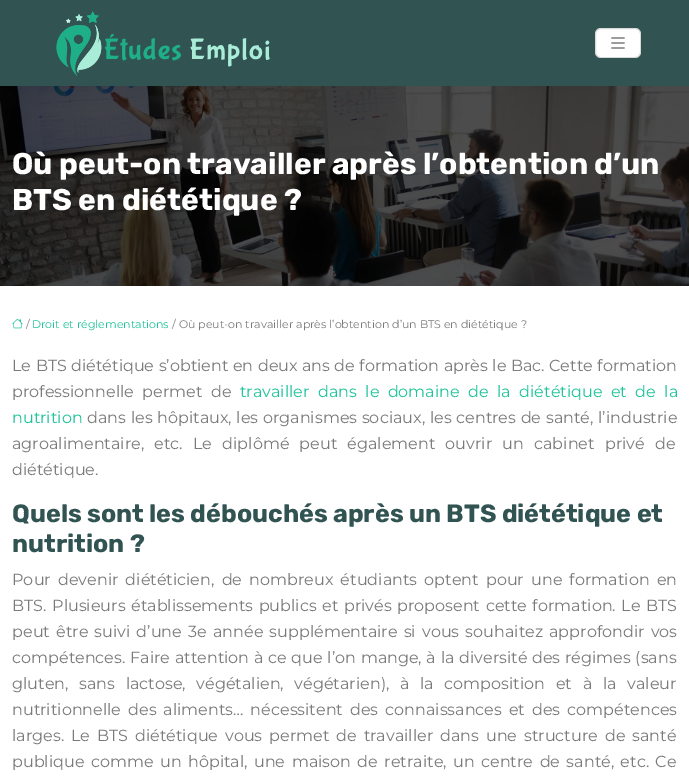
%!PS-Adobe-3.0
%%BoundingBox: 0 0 689 784
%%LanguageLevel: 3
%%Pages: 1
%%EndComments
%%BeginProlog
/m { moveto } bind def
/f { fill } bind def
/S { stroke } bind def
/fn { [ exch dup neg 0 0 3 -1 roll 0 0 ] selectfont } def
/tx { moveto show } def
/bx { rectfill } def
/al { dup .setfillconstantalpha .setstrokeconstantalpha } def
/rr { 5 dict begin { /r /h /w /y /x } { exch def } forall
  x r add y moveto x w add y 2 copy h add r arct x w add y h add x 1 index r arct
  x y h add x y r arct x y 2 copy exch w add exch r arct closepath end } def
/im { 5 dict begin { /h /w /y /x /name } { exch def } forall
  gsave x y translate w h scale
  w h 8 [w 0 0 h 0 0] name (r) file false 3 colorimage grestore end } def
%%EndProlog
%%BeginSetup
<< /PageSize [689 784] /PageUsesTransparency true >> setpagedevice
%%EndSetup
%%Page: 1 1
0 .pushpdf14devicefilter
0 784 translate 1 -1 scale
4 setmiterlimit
1 setgray
0 0 689 784 bx
0.192 0.329 0.325 setrgbcolor
0 0 689 86 bx
(image0.raw) 56 11 214 66 im
1 setgray
595 28 46 30 6 rr f
0.15 al
0 setgray
595.5 28.5 45 29 5.5 rr S
1 al
(image1.raw) 611 37 14 12 im
(image2.raw) 0 86 689 200 im
/Rubik-Light 30 fn
1 setgray
(Où peut-on travailler après l’obtention d’un) 12 174 tx
(BTS en diététique ?) 12 210 tx
(image3.raw) 12 318 11 11 im
/Montserrat-Regular 11 fn
0.478 setgray
(/) 26 328 tx
0.122 0.765 0.604 setrgbcolor
(Droit et réglementations) 32 328 tx
0.478 setgray
(/ Où peut-on travailler après l’obtention d’un BTS en diététique ?) 172 328 tx
/Montserrat-Regular 16 fn
12 371 m 0.25 0 32 (Le BTS diététique s’obtient en deux ans de formation après le Bac. Cette formation) widthshow
12 397 m 4.25 0 32 (professionnelle permet de) widthshow
0.122 0.765 0.604 setrgbcolor
240 397 m 4.25 0 32 (travailler dans le domaine de la diététique et de la) widthshow
(nutrition) 12 423 tx
0.478 setgray
87 423 m 0.5 0 32 (dans les hôpitaux, les organismes sociaux, les centres de santé, l’industrie) widthshow
12 449 m 6 0 32 (agroalimentaire, etc. Le diplômé peut également ouvrir un cabinet privé de) widthshow
(diététique.) 12 475 tx
/Rubik-Light 25 fn
0.192 0.329 0.325 setrgbcolor
(Quels sont les débouchés après un BTS diététique et) 12 522 tx
(nutrition ?) 12 552 tx
/Montserrat-Regular 16 fn
0.478 setgray
12 585 m 3 0 32 (Pour devenir diététicien, de nombreux étudiants optent pour une formation en) widthshow
12 611 m 1.4 0 32 (BTS. Plusieurs établissements publics et privés proposent cette formation. Le BTS) widthshow
12 637 m 2 0 32 (peut être suivi d’une 3e année supplémentaire si vous souhaitez approfondir vos) widthshow
12 663 m 0.5 0 32 (compétences. Faire attention à ce que l’on mange, à la diversité des régimes \(sans) widthshow
12 689 m 6.5 0 32 (gluten, sans lactose, végétalien, végétarien\), à la composition et à la valeur) widthshow
12 715 m 2.75 0 32 (nutritionnelle des aliments… nécessitent des connaissances et des compétences) widthshow
12 741 m 2.75 0 32 (larges. Le BTS diététique vous permet de travailler dans une structure de santé) widthshow
12 767 m 2.25 0 32 (publique comme un hôpital, une maison de retraite, un centre de santé, etc. Ce) widthshow
.poppdf14devicefilter showpage
%%EOF
